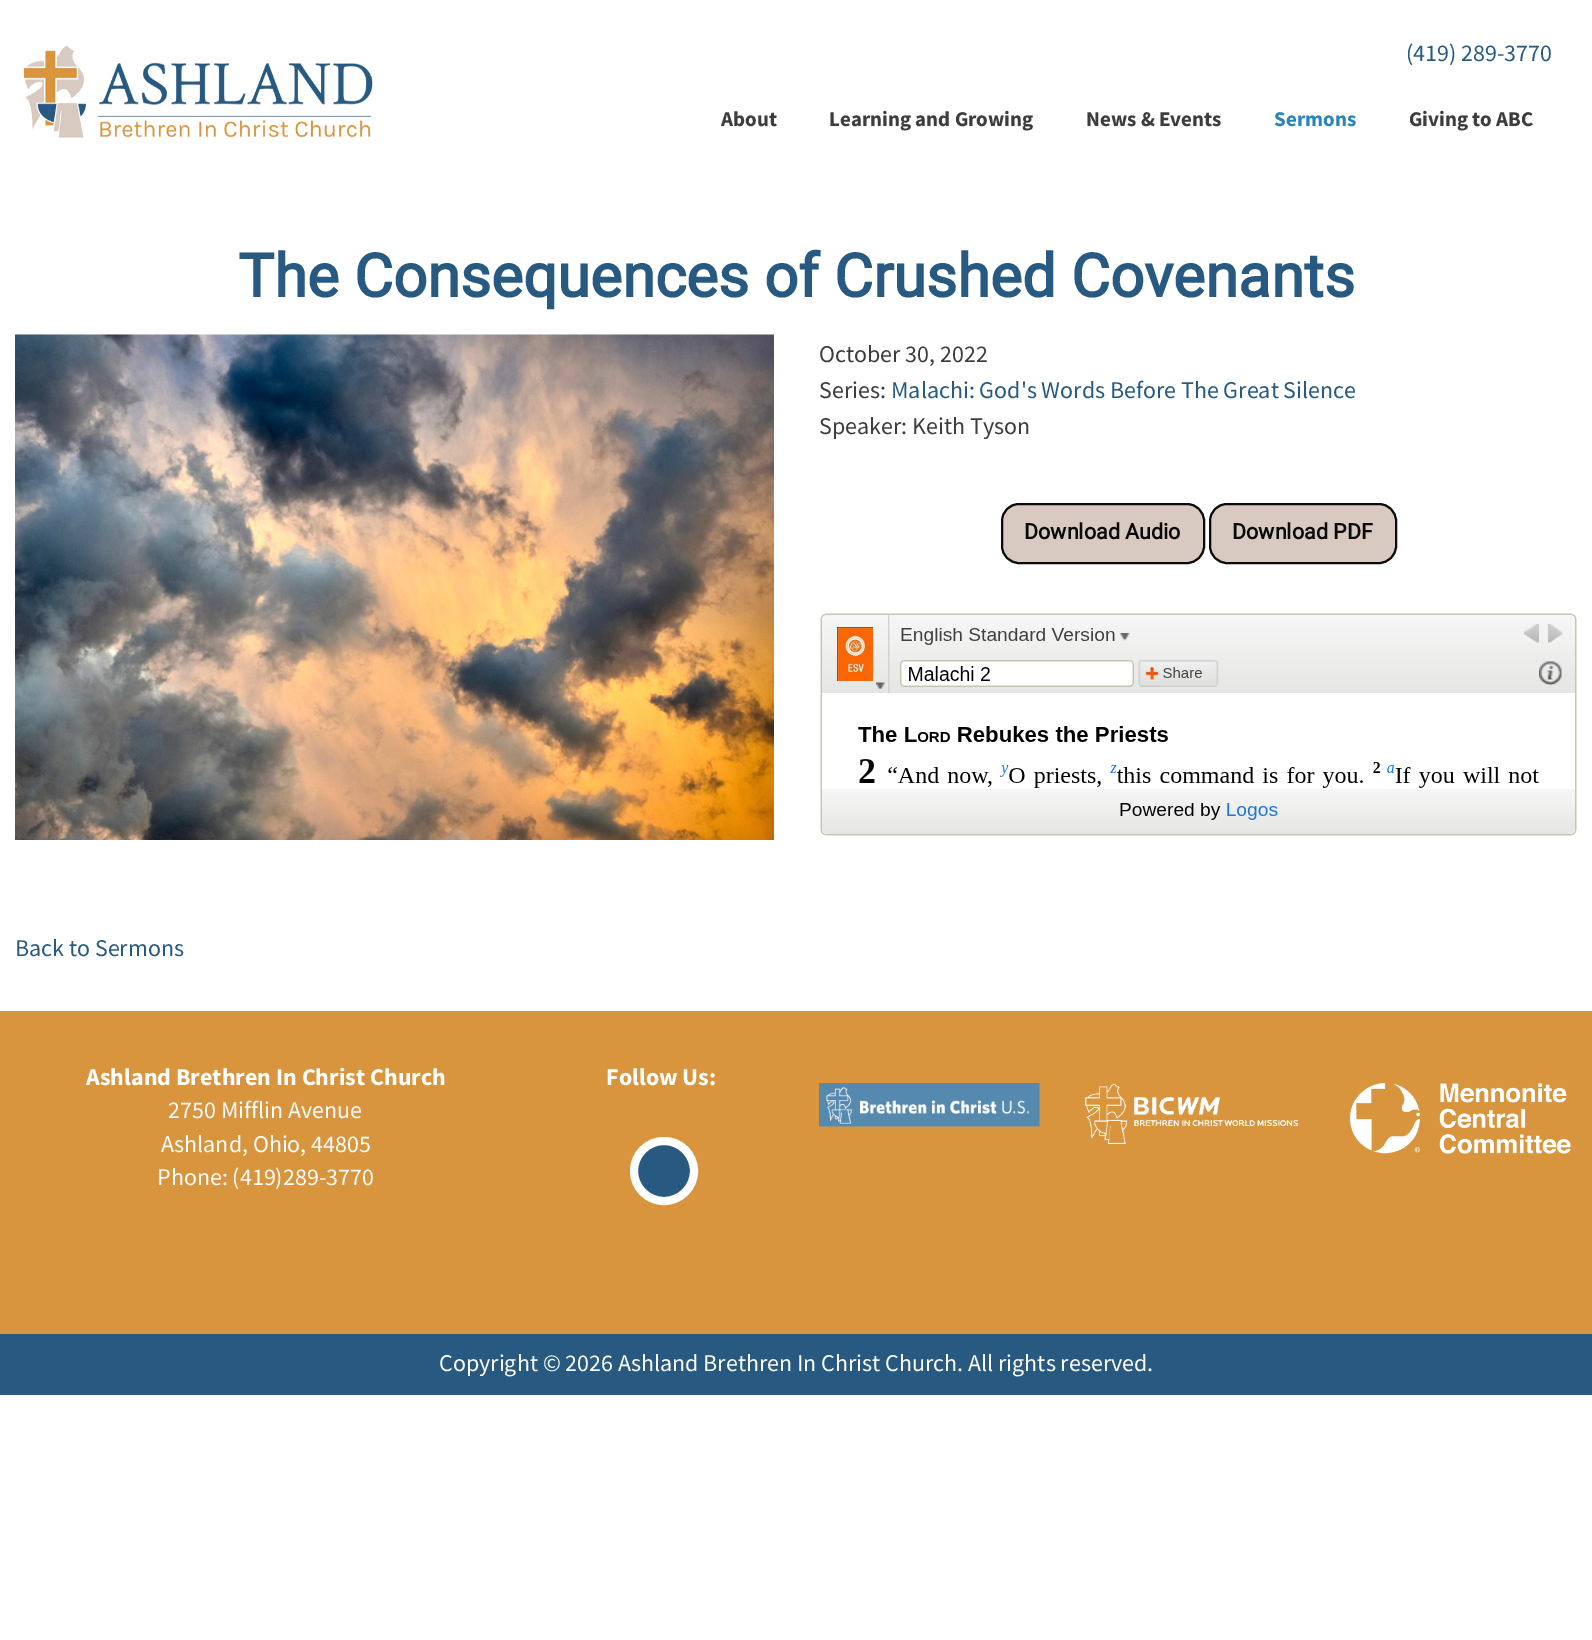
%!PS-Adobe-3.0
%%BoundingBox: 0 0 1592 1640
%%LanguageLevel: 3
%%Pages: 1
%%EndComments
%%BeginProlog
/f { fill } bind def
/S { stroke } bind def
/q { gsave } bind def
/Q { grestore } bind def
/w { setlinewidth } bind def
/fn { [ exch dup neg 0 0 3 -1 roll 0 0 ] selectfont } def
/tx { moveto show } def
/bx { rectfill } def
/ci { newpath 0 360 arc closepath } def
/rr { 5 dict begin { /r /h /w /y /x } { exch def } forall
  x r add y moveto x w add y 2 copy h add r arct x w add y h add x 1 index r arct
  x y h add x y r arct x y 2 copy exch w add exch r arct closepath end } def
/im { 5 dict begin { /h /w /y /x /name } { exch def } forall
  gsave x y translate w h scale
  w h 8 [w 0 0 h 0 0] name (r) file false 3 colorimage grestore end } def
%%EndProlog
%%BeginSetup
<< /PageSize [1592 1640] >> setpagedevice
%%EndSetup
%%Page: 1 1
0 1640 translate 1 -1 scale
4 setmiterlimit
1 setgray
0 0 1592 1640 bx
(image0.raw) 23 46 350 92 im
/SourceSansPro-Regular 24 fn
0.157 0.353 0.506 setrgbcolor
(\(419\) 289-3770) 1406 61 tx
/SourceSansPro-Bold 21 fn
0.239 setgray
(About) 721 126 tx
(Learning and Growing) 829 126 tx
(News & Events) 1086 126 tx
0.165 0.522 0.729 setrgbcolor
(Sermons) 1274 126 tx
0.239 setgray
(Giving to ABC) 1409 126 tx
/Roboto-Bold 60 fn
0.157 0.353 0.506 setrgbcolor
(The Consequences of Crushed Covenants) 238 297 tx
(image1.raw) 15 334 759 506 im
/SourceSansPro-Regular 24 fn
0.239 setgray
(October 30, 2022) 819 362 tx
(Series:) 819 398 tx
0.157 0.353 0.506 setrgbcolor
(Malachi: God's Words Before The Great Silence) 891 398 tx
0.239 setgray
(Speaker: Keith Tyson) 819 434 tx
0.847 0.792 0.753 setrgbcolor
1002 504 202 59 17 rr q f Q
0.039 setgray
2 w
S
/Roboto-Bold 21.5 fn
(Download Audio) 1024 539 tx
0.847 0.792 0.753 setrgbcolor
1210 504 186 59 17 rr q f Q
0.039 setgray
S
(Download PDF) 1232 539 tx
(image2.raw) 820 613 757 223 im
/SourceSansPro-Regular 24 fn
0.157 0.353 0.506 setrgbcolor
(Back to Sermons) 15 956 tx
0.847 0.584 0.243 setrgbcolor
0 1011 1592 323 bx
/SourceSansPro-Bold 24 fn
1 setgray
(Ashland Brethren In Christ Church) 86 1085 tx
/SourceSansPro-Regular 24 fn
(2750 Mifflin Avenue) 168 1118 tx
(Ashland, Ohio, 44805) 161 1152 tx
(Phone: \(419\)289-3770) 157 1185 tx
/SourceSansPro-Bold 24 fn
(Follow Us:) 606 1085 tx
0.157 0.353 0.506 setrgbcolor
664 1171 30 ci q f Q
1 setgray
8 w
S
(image3.raw) 819 1083 221 44 im
(image4.raw) 1085 1083 213 61 im
(image5.raw) 1350 1083 221 71 im
0.157 0.353 0.506 setrgbcolor
0 1334 1592 61 bx
/SourceSansPro-Regular 24 fn
1 setgray
(Copyright © 2026 Ashland Brethren In Christ Church. All rights reserved.) 439 1371 tx
showpage
%%EOF
